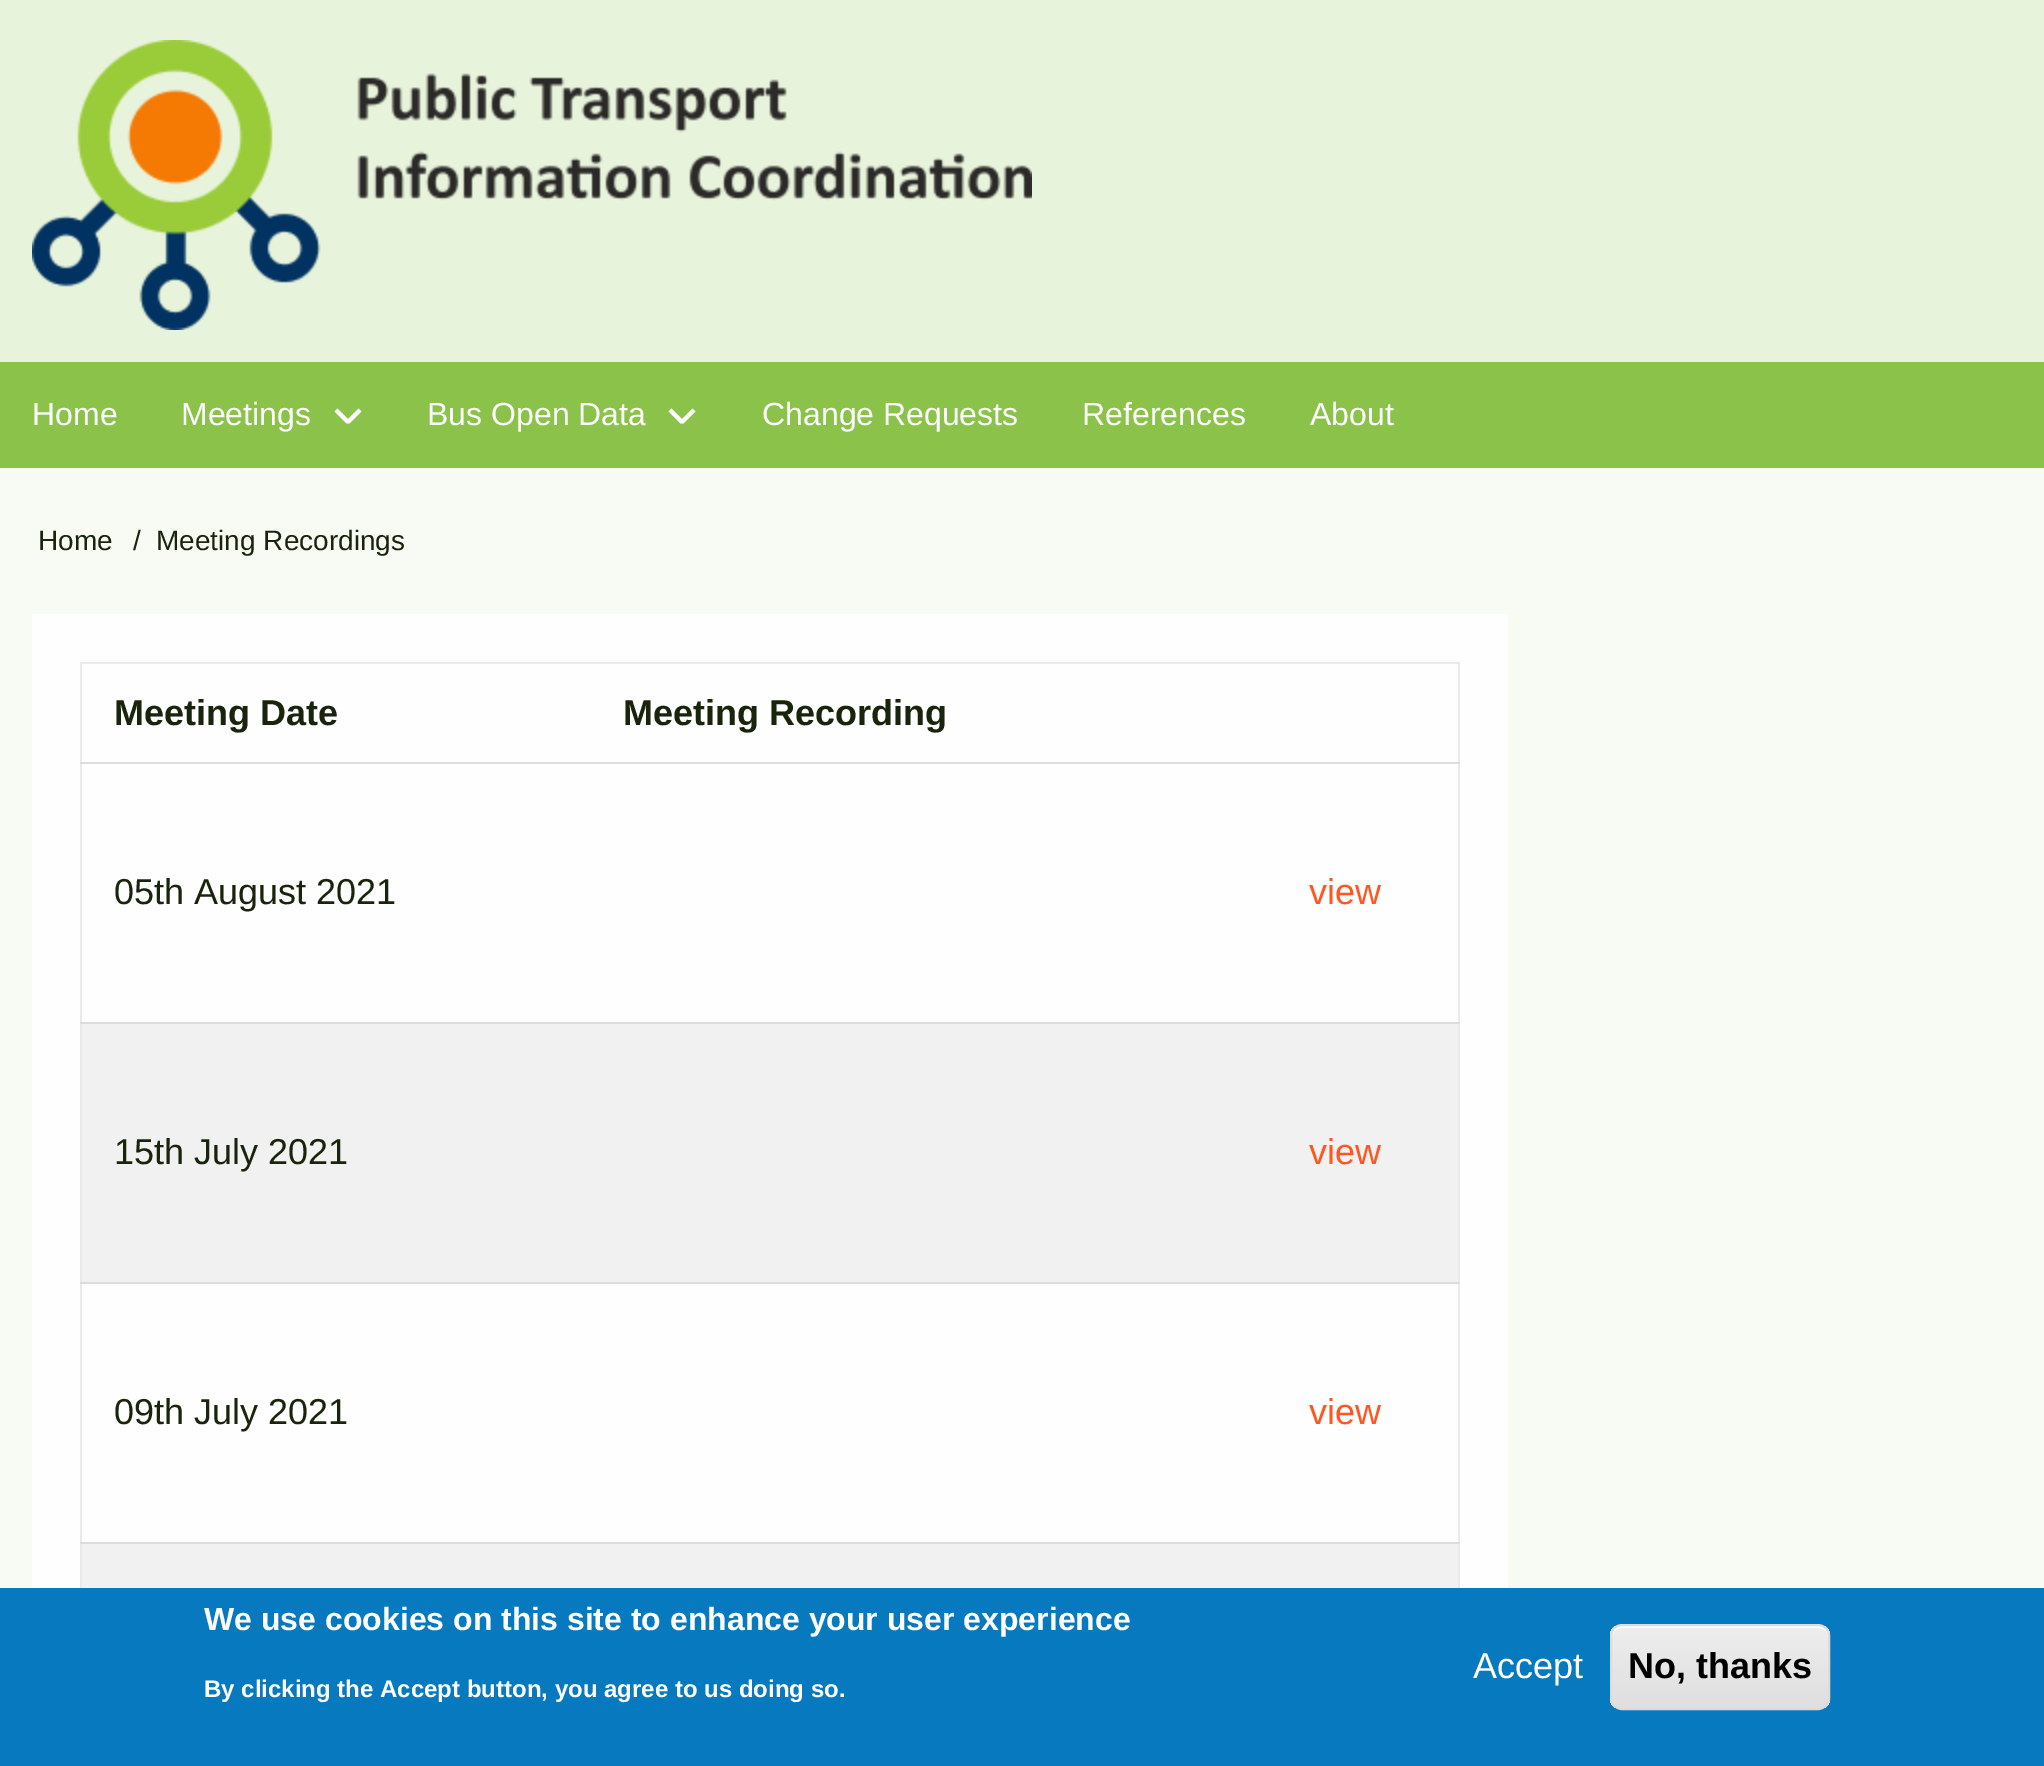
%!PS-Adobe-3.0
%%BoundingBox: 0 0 2044 1766
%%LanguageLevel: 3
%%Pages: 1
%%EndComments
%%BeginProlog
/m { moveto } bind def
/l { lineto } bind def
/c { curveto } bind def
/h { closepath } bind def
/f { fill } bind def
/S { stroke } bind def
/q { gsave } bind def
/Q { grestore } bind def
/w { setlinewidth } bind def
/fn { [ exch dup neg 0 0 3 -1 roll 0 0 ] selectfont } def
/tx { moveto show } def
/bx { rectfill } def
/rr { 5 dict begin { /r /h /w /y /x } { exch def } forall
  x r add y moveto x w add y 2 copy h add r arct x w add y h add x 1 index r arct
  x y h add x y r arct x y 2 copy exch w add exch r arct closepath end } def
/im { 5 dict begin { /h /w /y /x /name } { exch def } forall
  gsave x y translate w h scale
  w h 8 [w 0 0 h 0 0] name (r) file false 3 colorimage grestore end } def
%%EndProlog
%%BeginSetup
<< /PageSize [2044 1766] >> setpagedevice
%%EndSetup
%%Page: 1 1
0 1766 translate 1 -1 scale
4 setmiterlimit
0.91 0.953 0.859 setrgbcolor
0 0 2044 1766 bx
(image0.raw) 32 40 1000 290 im
0.545 0.765 0.29 setrgbcolor
0 362 2044 106 bx
/LiberationSans-Regular 32 fn
0.992 0.996 0.992 setrgbcolor
(Home) 32 425 tx
(Meetings) 181 425 tx
4 w
2 setlinejoin
336 410 m 348 422 l 360 410 l S
(Bus Open Data) 427 425 tx
670 410 m 682 422 l 694 410 l S
(Change Requests) 762 425 tx
(References) 1082 425 tx
(About) 1310 425 tx
0.973 0.984 0.957 setrgbcolor
0 468 2044 1120 bx
/LiberationSans-Regular 28 fn
0.098 0.141 0.047 setrgbcolor
(Home) 38 550 tx
(/) 133 550 tx
(Meeting Recordings) 156 550 tx
0.992 0.996 0.992 setrgbcolor
32 614 1476 974 bx
0.918 setgray
80 662 1380 2 bx
1458 662 2 926 bx
80 662 2 926 bx
0.867 setgray
80 762 1380 2 bx
/LiberationSans-Bold 36 fn
0.098 0.141 0.047 setrgbcolor
(Meeting Date) 114 725 tx
(Meeting Recording) 623 725 tx
0.867 setgray
80 1022 1380 2 bx
/LiberationSans-Regular 36 fn
0.098 0.141 0.047 setrgbcolor
(05th August 2021) 114 904 tx
1 0.341 0.133 setrgbcolor
(view) 1309 904 tx
0.945 setgray
82 1024 1376 258 bx
0.867 setgray
80 1282 1380 2 bx
0.098 0.141 0.047 setrgbcolor
(15th July 2021) 114 1164 tx
1 0.341 0.133 setrgbcolor
(view) 1309 1164 tx
0.867 setgray
80 1542 1380 2 bx
0.098 0.141 0.047 setrgbcolor
(09th July 2021) 114 1424 tx
1 0.341 0.133 setrgbcolor
(view) 1309 1424 tx
0.945 setgray
82 1544 1376 44 bx
0.027 0.475 0.749 setrgbcolor
0 1588 2044 178 bx
/LiberationSans-Bold 32 fn
0.992 0.996 0.992 setrgbcolor
(We use cookies on this site to enhance your user experience) 204 1630 tx
/LiberationSans-Bold 24 fn
(By clicking the Accept button, you agree to us doing so.) 204 1697 tx
/LiberationSans-Regular 36 fn
(Accept) 1473 1678 tx
q
1610 1624 220 86 12 rr clip newpath
q 1610 1626 m 1830 1626 l 1830 1708 l 1610 1708 l h clip newpath
<< /ShadingType 2 /ColorSpace /DeviceRGB /Coords [1720 1626 1720 1708] /Extend [true true] /Function << /FunctionType 3 /Domain [0 1] /Functions [<< /FunctionType 2 /Domain [0 1] /C0 [0.929 0.929 0.929] /C1 [0.929 0.929 0.929] /N 1 >> << /FunctionType 2 /Domain [0 1] /C0 [0.929 0.929 0.929] /C1 [0.875 0.875 0.875] /N 1 >>] /Bounds [0.05] /Encode [0 1 0 1] >> >> shfill Q
Q
1 setgray
1622 1628 m 1818 1628 l 1824 1628 1828 1632 1828 1638 c 1828 1636 l 1828 1630 1824 1626 1818 1626 c 1622 1626 l 1616 1626 1612 1630 1612 1636 c 1612 1638 l 1612 1632 1616 1628 1622 1628 c h f
0.863 setgray
2 w
0 setlinejoin
1611 1625 218 84 11 rr S
/LiberationSans-Bold 36 fn
0 setgray
(No, thanks) 1628 1678 tx
showpage
%%EOF
